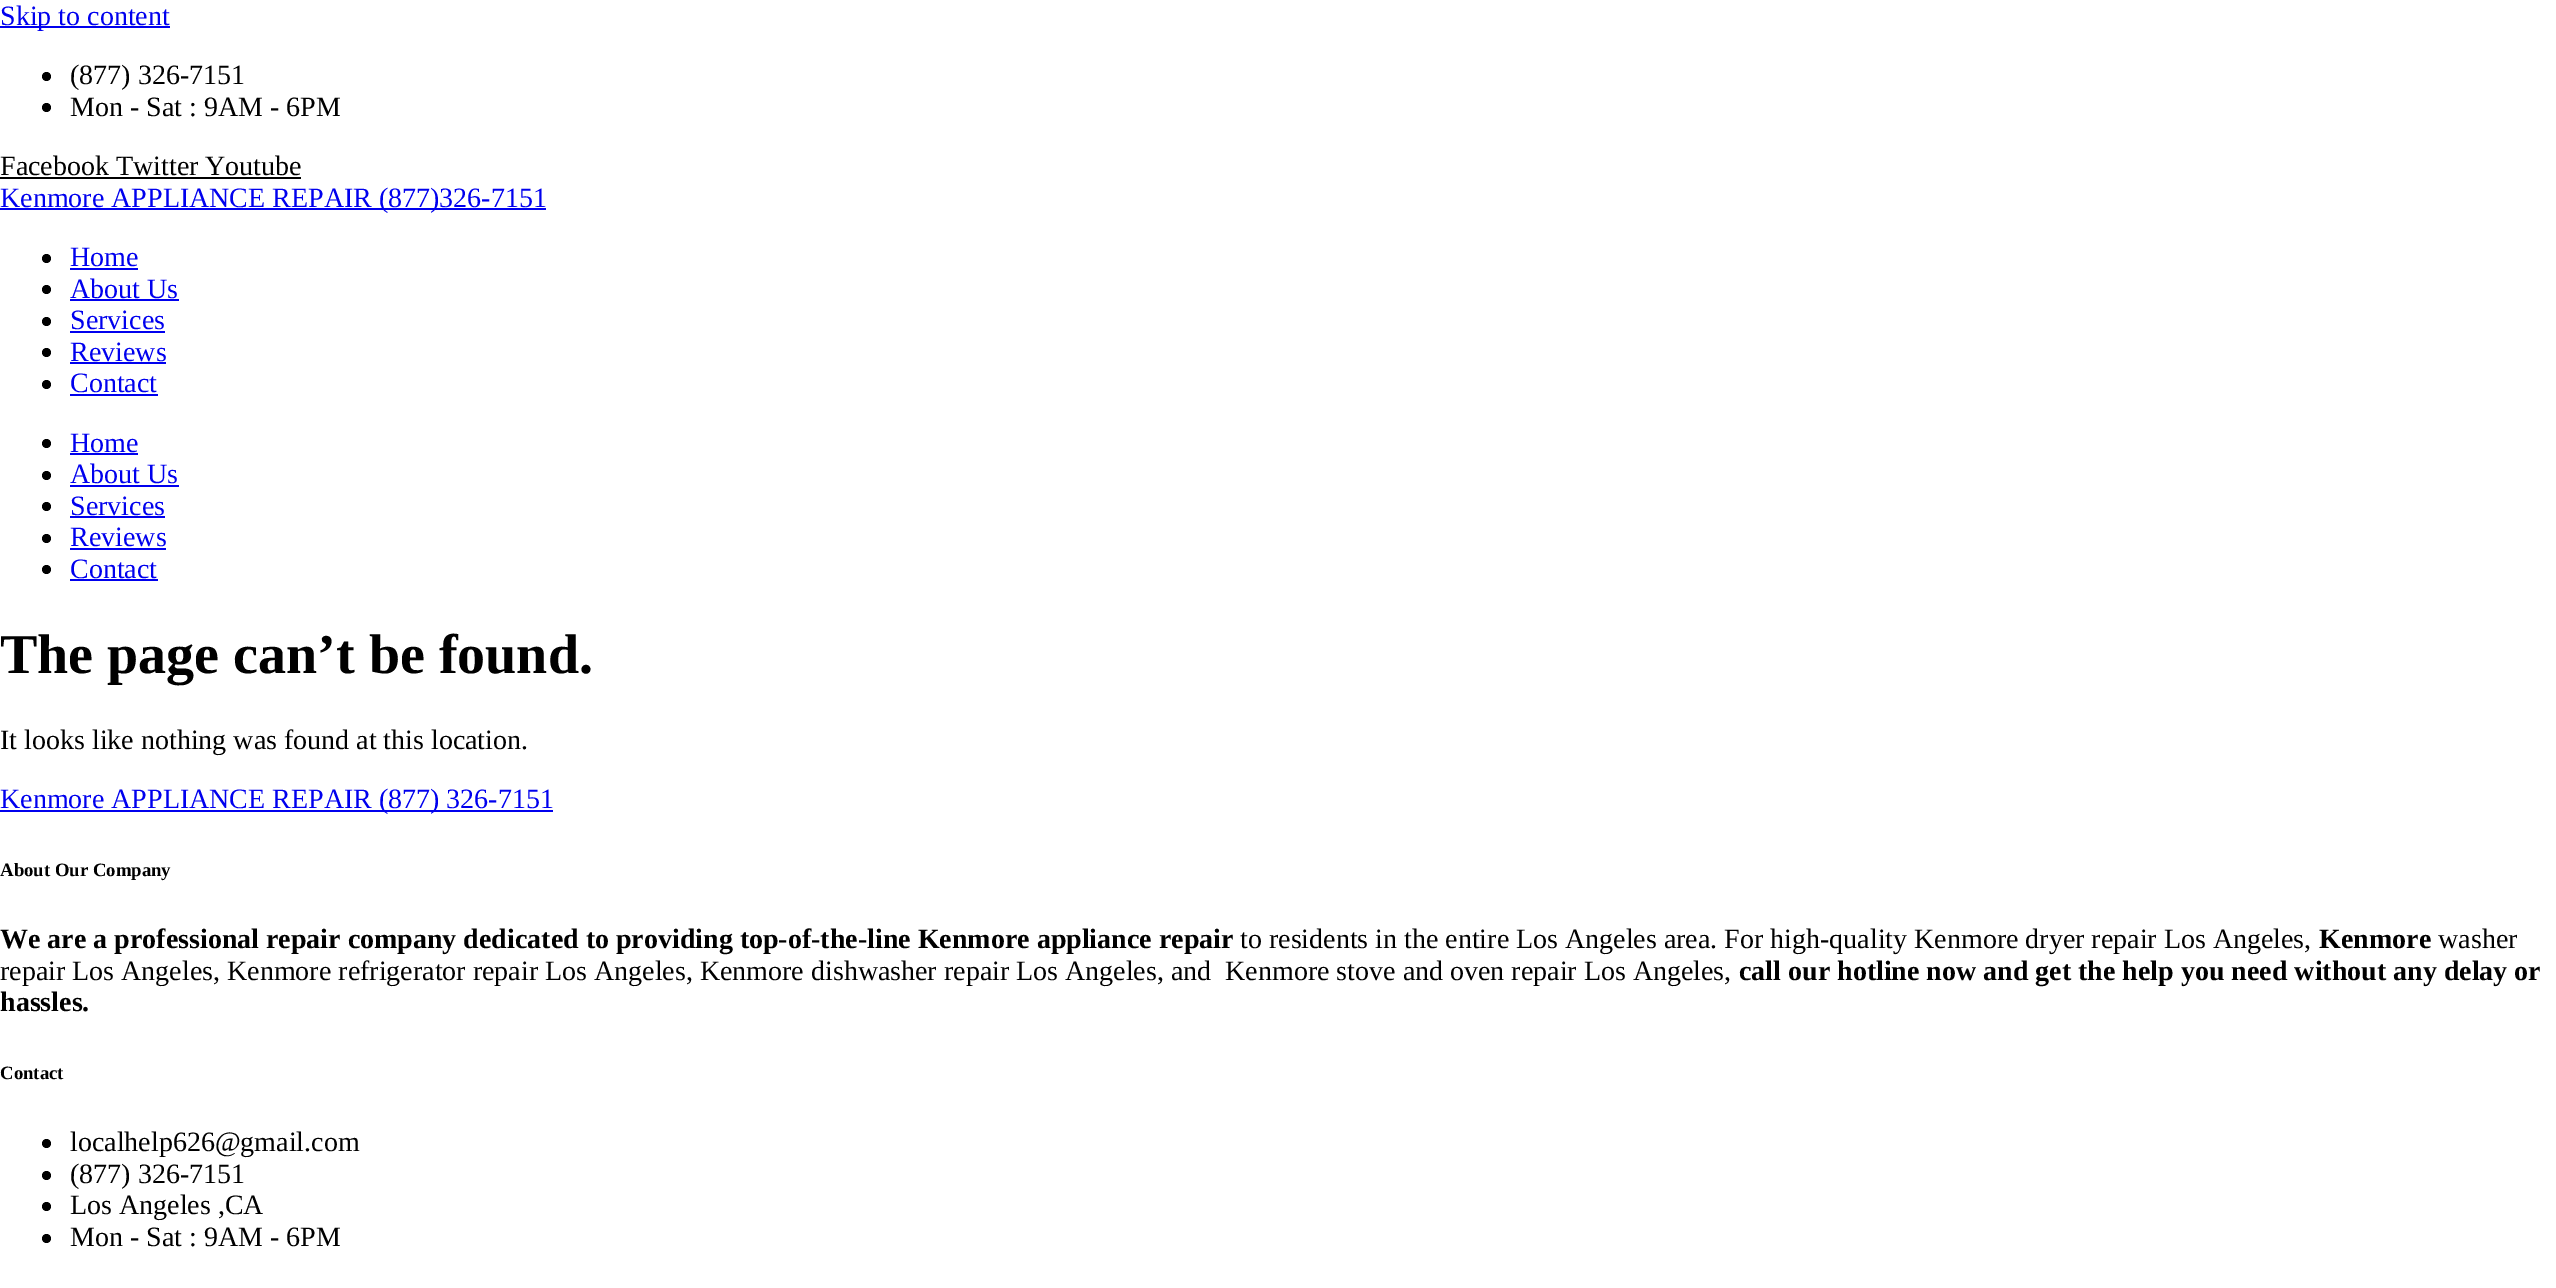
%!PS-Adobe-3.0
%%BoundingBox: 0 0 2556 1288
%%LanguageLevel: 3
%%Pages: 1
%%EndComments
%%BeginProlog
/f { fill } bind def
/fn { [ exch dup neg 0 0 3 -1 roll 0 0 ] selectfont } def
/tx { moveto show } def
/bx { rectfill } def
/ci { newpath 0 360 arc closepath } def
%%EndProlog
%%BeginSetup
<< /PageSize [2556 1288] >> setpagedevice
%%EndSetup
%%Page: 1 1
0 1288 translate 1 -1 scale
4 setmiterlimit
1 setgray
0 0 2556 1288 bx
0 0 0.933 setrgbcolor
0 26 170 2 bx
/LiberationSerif-Regular 28 fn
(Skip to content) 0 25 tx
0 setgray
46.5 76.5 4.5 ci f
(\(877\) 326-7151) 70 84 tx
46.5 107.5 4.5 ci f
(Mon - Sat : 9AM - 6PM) 70 116 tx
(Facebook Twitter Youtube) 0 175 tx
0 177 301 2 bx
0 0 0.933 setrgbcolor
0 208 546 2 bx
(Kenmore APPLIANCE REPAIR \(877\)326-7151) 0 207 tx
0 setgray
46.5 258.5 4.5 ci f
0 0 0.933 setrgbcolor
(Home) 70 266 tx
70 268 68 2 bx
0 setgray
46.5 289.5 4.5 ci f
0 0 0.933 setrgbcolor
(About Us) 70 298 tx
70 299 109 2 bx
0 setgray
46.5 321.5 4.5 ci f
0 0 0.933 setrgbcolor
(Services) 70 329 tx
70 331 95 2 bx
0 setgray
46.5 352.5 4.5 ci f
0 0 0.933 setrgbcolor
(Reviews) 70 361 tx
70 362 96 2 bx
0 setgray
46.5 384.5 4.5 ci f
0 0 0.933 setrgbcolor
(Contact) 70 392 tx
70 394 88 2 bx
0 setgray
46.5 443.5 4.5 ci f
0 0 0.933 setrgbcolor
(Home) 70 452 tx
70 453 68 2 bx
0 setgray
46.5 475.5 4.5 ci f
0 0 0.933 setrgbcolor
(About Us) 70 483 tx
70 485 109 2 bx
0 setgray
46.5 506.5 4.5 ci f
0 0 0.933 setrgbcolor
(Services) 70 515 tx
70 516 95 2 bx
0 setgray
46.5 538.5 4.5 ci f
0 0 0.933 setrgbcolor
(Reviews) 70 546 tx
70 548 96 2 bx
0 setgray
46.5 569.5 4.5 ci f
0 0 0.933 setrgbcolor
(Contact) 70 578 tx
70 579 88 2 bx
/LiberationSerif-Bold 56 fn
0 setgray
(The page can’t be found.) 0 673 tx
/LiberationSerif-Regular 28 fn
(It looks like nothing was found at this location.) 0 749 tx
0 0 0.933 setrgbcolor
0 810 553 2 bx
(Kenmore APPLIANCE REPAIR \(877\) 326-7151) 0 808 tx
/LiberationSerif-Bold 18.75 fn
0 setgray
(About Our Company) 0 876 tx
/LiberationSerif-Bold 28 fn
(We are a professional repair company dedicated to providing top-of-the-line Kenmore appliance repair) 0 948 tx
/LiberationSerif-Regular 28 fn
(to residents in the entire Los Angeles area. For high-quality Kenmore dryer repair Los Angeles,) 1240 948 tx
/LiberationSerif-Bold 28 fn
(Kenmore) 2319 948 tx
/LiberationSerif-Regular 28 fn
(washer) 2438 948 tx
(repair Los Angeles, Kenmore refrigerator repair Los Angeles, Kenmore dishwasher repair Los Angeles, and  Kenmore stove and oven repair Los Angeles,) 0 980 tx
/LiberationSerif-Bold 28 fn
(call our hotline now and get the help you need without any delay or) 1739 980 tx
(hassles.) 0 1011 tx
/LiberationSerif-Bold 18.75 fn
(Contact) 0 1079 tx
46.5 1143.5 4.5 ci f
/LiberationSerif-Regular 28 fn
(localhelp626@gmail.com) 70 1151 tx
46.5 1175.5 4.5 ci f
(\(877\) 326-7151) 70 1183 tx
46.5 1206.5 4.5 ci f
(Los Angeles ,CA) 70 1214 tx
46.5 1238.5 4.5 ci f
(Mon - Sat : 9AM - 6PM) 70 1246 tx
showpage
%%EOF
